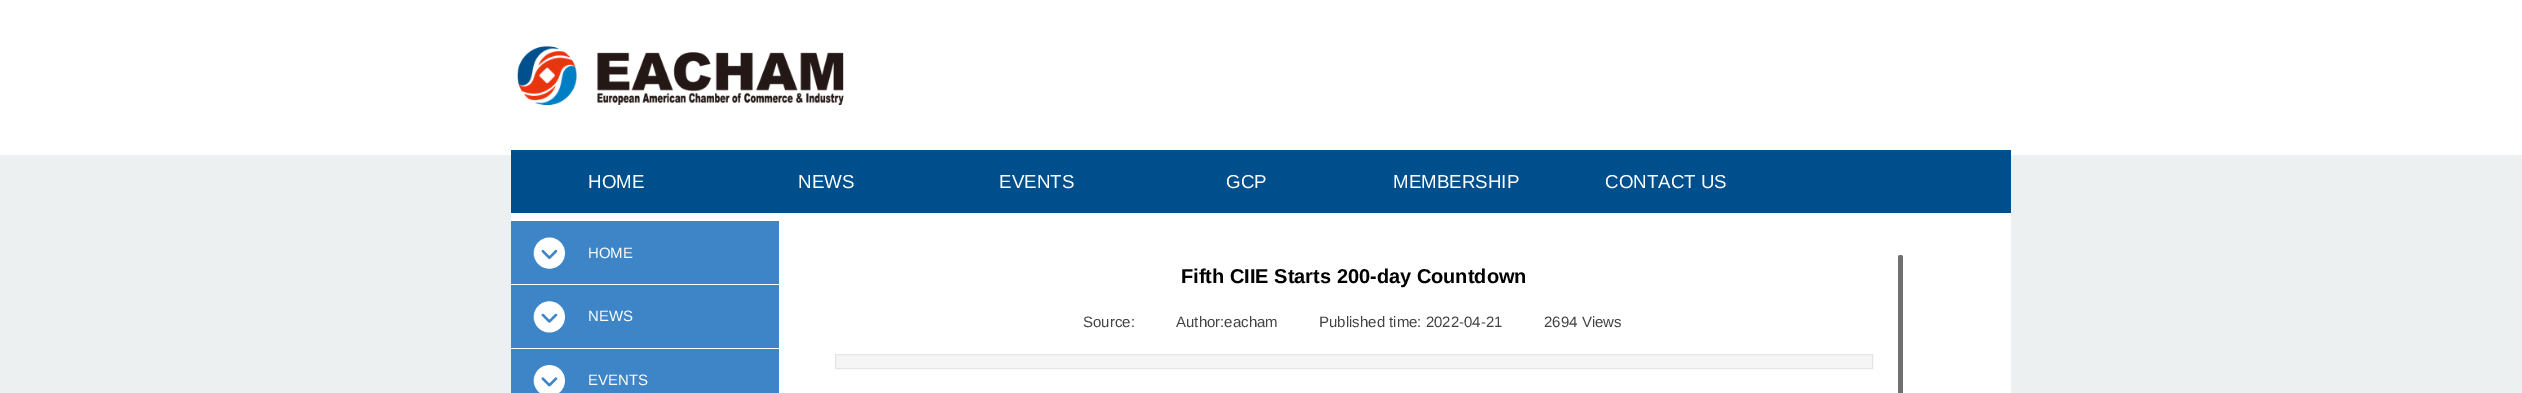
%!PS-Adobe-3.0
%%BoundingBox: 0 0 2522 393
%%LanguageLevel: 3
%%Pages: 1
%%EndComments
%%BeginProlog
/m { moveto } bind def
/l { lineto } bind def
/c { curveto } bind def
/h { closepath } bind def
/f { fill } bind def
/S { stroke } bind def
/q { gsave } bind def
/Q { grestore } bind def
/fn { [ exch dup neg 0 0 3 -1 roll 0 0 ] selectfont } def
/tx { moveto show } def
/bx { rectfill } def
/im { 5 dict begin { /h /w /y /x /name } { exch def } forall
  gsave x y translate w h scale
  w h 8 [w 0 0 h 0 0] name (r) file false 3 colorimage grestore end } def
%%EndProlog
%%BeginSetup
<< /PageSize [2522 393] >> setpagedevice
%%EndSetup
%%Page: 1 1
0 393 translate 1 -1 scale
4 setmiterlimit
0.925 0.941 0.945 setrgbcolor
0 0 2522 393 bx
1 setgray
511 213 1500 180 bx
0 0 2522 155 bx
(image0.raw) 517 46 327 59 im
0 0.31 0.553 setrgbcolor
511 150 1500 63 bx
/LiberationSans-Regular 18.75 fn
1 setgray
(HOME) 588 188 tx
(NEWS) 798 188 tx
(EVENTS) 999 188 tx
(GCP) 1226 188 tx
(MEMBERSHIP) 1393 188 tx
(CONTACT US) 1605 188 tx
0.239 0.522 0.776 setrgbcolor
511 221 268 63 bx
(image1.raw) 533 237 32 32 im
/LiberationSans-Regular 15 fn
1 setgray
(HOME) 588 258 tx
0.239 0.522 0.776 setrgbcolor
511 285 268 63 bx
(image2.raw) 533 301 32 32 im
1 setgray
(NEWS) 588 321 tx
0.239 0.522 0.776 setrgbcolor
511 349 268 44 bx
(image3.raw) 533 365 32 28 im
1 setgray
(EVENTS) 588 385 tx
/LiberationSans-Bold 20 fn
0 setgray
(Fifth CIIE Starts 200-day Countdown) 1181 283 tx
/LiberationSans-Regular 15 fn
0.263 setgray
(Source:) 1083 327 tx
(Author:eacham) 1176 327 tx
(Published time: 2022-04-21) 1319 327 tx
(2694 Views) 1544 327 tx
0.961 setgray
835.5 354.5 m 1872.5 354.5 l 1872.5 368.5 l 835.5 368.5 l h q f Q
0.898 setgray
S
0.439 setgray
1900.5 255 m 1902 255 1903 256 1903 257.5 c 1903 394 l 1898 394 l 1898 257.5 l 1898 256 1899 255 1900.5 255 c h f
showpage
%%EOF
